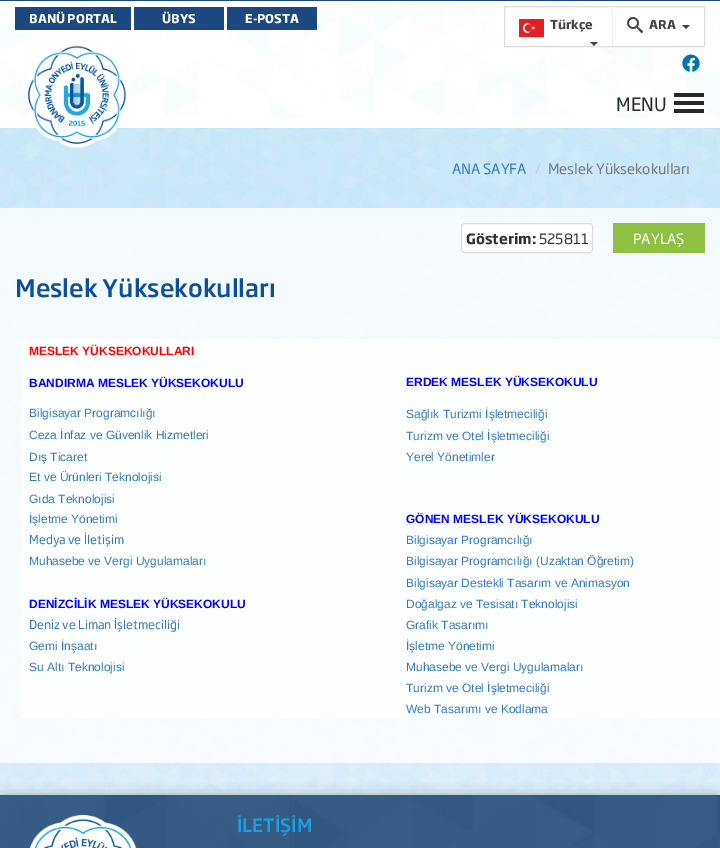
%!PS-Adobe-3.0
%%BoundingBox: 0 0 720 848
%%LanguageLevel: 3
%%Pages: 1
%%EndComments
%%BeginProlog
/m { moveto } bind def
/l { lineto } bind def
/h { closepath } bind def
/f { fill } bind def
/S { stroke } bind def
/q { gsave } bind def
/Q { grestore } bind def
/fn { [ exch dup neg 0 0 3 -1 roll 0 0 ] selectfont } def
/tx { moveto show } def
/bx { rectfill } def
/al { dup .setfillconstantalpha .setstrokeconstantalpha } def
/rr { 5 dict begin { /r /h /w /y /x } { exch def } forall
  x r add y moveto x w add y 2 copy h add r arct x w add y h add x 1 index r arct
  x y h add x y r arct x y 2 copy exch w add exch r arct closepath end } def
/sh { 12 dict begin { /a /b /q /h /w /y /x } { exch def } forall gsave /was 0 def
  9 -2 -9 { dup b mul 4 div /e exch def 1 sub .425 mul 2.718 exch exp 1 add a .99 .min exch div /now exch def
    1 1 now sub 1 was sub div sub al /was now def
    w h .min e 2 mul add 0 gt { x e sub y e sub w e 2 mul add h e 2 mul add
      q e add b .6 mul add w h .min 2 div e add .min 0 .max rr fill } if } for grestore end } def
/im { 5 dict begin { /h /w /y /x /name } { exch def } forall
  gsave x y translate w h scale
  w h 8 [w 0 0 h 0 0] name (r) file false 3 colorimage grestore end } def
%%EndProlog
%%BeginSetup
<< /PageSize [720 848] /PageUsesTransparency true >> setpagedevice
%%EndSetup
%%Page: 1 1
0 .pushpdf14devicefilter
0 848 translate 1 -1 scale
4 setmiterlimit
1 setgray
0 0 720 848 bx
(image0.raw) 0 1 720 117 im
0.106 0.282 0.506 setrgbcolor
0 0 720 1 bx
15 7 116 23 bx
/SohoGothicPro-Bold 12 fn
1 setgray
(BANÜ PORTAL) 29 23 tx
0.106 0.282 0.506 setrgbcolor
134 7 90 23 bx
1 setgray
(ÜBYS) 162 23 tx
0.106 0.282 0.506 setrgbcolor
227 7 90 23 bx
1 setgray
(E-POSTA) 245 23 tx
507 7 197 39 bx
0.867 setgray
504.5 6.5 200 40 rectstroke
(image1.raw) 519 19 25 18 im
0.267 setgray
(Türkçe) 550 29 tx
590 42 m 598 42 l 594 46 l h f
0.933 setgray
612 7 1 39 bx
(image2.raw) 627 17 16 16 im
0.267 setgray
(ARA) 649 29 tx
682 25 m 690 25 l 686 29 l h f
(image3.raw) 682 54 18 18 im
(image5.raw) 0 128 720 667 im
(image4.raw) 25 45 101 103 im
/SohoGothicPro-Regular 18 fn
0.157 setgray
(MENU) 616 111 tx
674 101 30 4 bx
674 93 30 4 bx
674 109 30 4 bx
/SohoGothicPro-Regular 14 fn
0.2 0.478 0.718 setrgbcolor
(ANA SAYFA) 452 174 tx
0.8 setgray
(/) 535 174 tx
0.467 setgray
(Meslek Yüksekokulları) 548 174 tx
0.8 al
1 setgray
0 208 720 555 bx
1 al
461.5 223.5 131 29 3.5 rr q f Q
0.867 setgray
S
/SohoGothicPro-Bold 14 fn
0.2 setgray
(Gösterim:) 466 244 tx
/SohoGothicPro-Regular 14 fn
(525811) 539 244 tx
0.565 0.753 0.259 setrgbcolor
613 223 92 30 bx
1 setgray
(PAYLAŞ) 633 244 tx
/SohoGothicPro-Medium 24 fn
0.055 0.31 0.608 setrgbcolor
(Meslek Yüksekokulları) 15 297 tx
0.8 al
1 setgray
21 339 699 379 bx
/LiberationSans-Bold 12 fn
1 al
1 0 0 setrgbcolor
(MESLEK YÜKSEKOKULLARI) 29 355 tx
0 0 1 setrgbcolor
(BANDIRMA MESLEK YÜKSEKOKULU) 29 387 tx
(ERDEK MESLEK YÜKSEKOKULU) 406 386 tx
/LiberationSans-Regular 12 fn
0.2 0.478 0.718 setrgbcolor
(Bilgisayar Programcılığı) 29 417 tx
(Sağlık Turizmi İşletmeciliği) 406 418 tx
(Ceza İnfaz ve Güvenlik Hizmetleri) 29 439 tx
(Turizm ve Otel İşletmeciliği) 406 440 tx
(Dış Ticaret) 29 461 tx
(Yerel Yönetimler) 406 461 tx
(Et ve Ürünleri Teknolojisi) 29 481 tx
(Gıda Teknolojisi) 29 503 tx
(İşletme Yönetimi) 29 523 tx
/LiberationSans-Bold 12 fn
0 0 1 setrgbcolor
(GÖNEN MESLEK YÜKSEKOKULU) 406 523 tx
/SohoGothicPro-Regular 12 fn
0.2 0.478 0.718 setrgbcolor
(Medya ve İletişim) 29 544 tx
/LiberationSans-Regular 12 fn
(Bilgisayar Programcılığı) 406 544 tx
(Muhasebe ve Vergi Uygulamaları) 29 565 tx
(Bilgisayar Programcılığı \(Uzaktan Öğretim\)) 406 565 tx
(Bilgisayar Destekli Tasarım ve Animasyon) 406 587 tx
/LiberationSans-Bold 12 fn
0 0 1 setrgbcolor
(DENİZCİLİK MESLEK YÜKSEKOKULU) 29 608 tx
/LiberationSans-Regular 12 fn
0.2 0.478 0.718 setrgbcolor
(Doğalgaz ve Tesisatı Teknolojisi) 406 608 tx
/SohoGothicPro-Regular 12 fn
(Deniz ve Liman İşletmeciliği) 29 629 tx
/LiberationSans-Regular 12 fn
(Grafik Tasarımı) 406 629 tx
(Gemi İnşaatı) 29 650 tx
(İşletme Yönetimi) 406 650 tx
(Su Altı Teknolojisi) 29 671 tx
(Muhasebe ve Vergi Uygulamaları) 406 671 tx
(Turizm ve Otel İşletmeciliği) 406 692 tx
(Web Tasarımı ve Kodlama) 406 713 tx
0 setgray
3 798 714 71 0 7 0.4 sh
(image6.raw) 0 795 720 53 im
(image7.raw) 29 815 108 33 im
/SohoGothicPro-Medium 18 fn
0.102 0.627 0.878 setrgbcolor
(İLETİŞİM) 237 832 tx
.poppdf14devicefilter showpage
%%EOF
